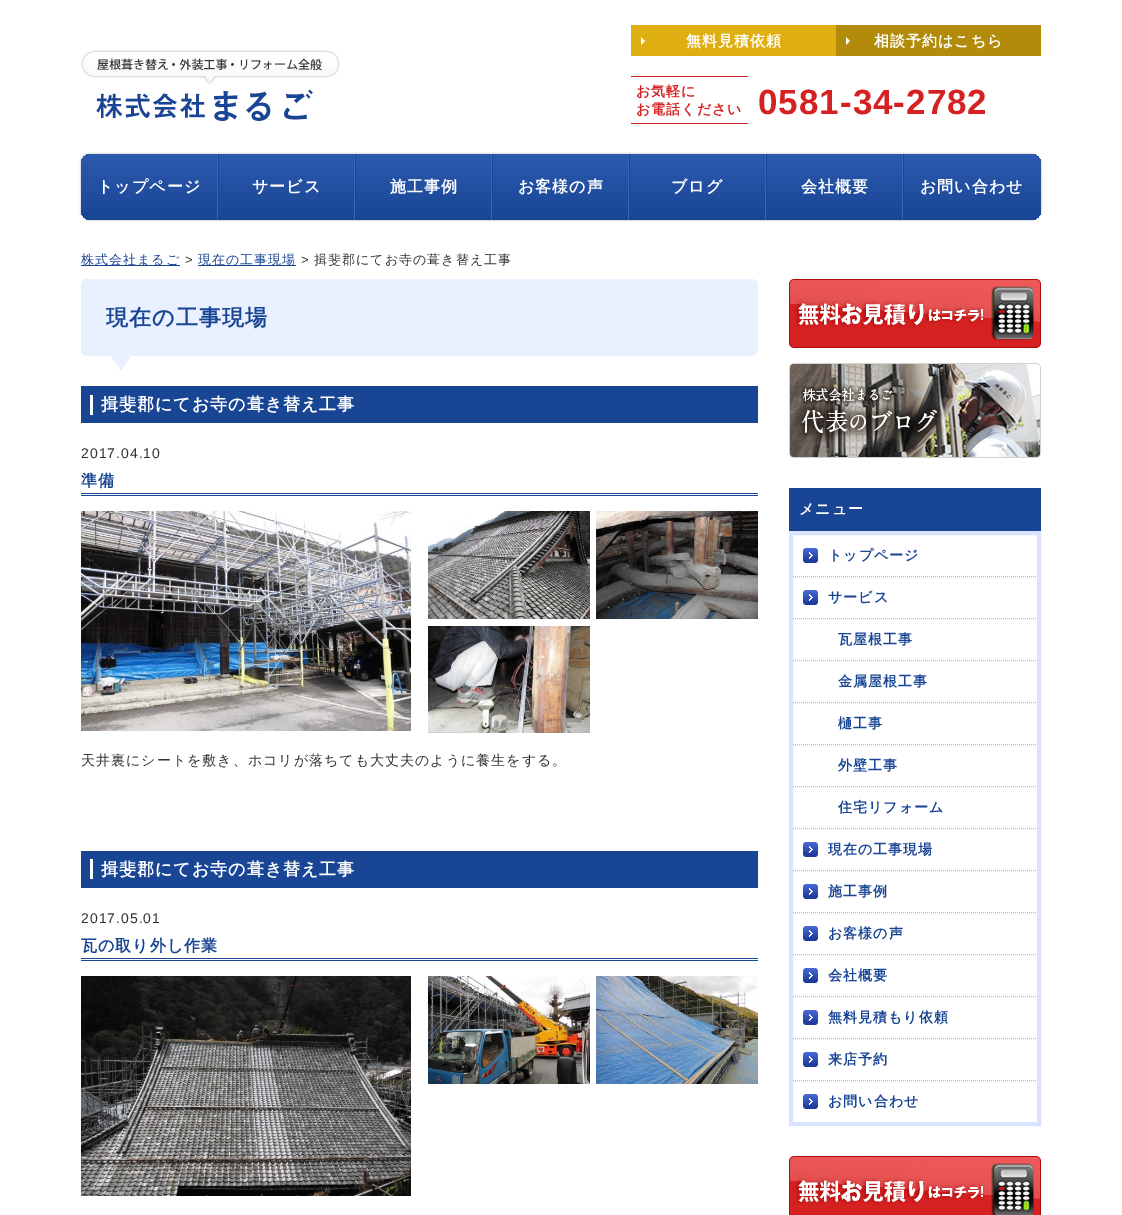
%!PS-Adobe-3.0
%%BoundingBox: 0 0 1122 1215
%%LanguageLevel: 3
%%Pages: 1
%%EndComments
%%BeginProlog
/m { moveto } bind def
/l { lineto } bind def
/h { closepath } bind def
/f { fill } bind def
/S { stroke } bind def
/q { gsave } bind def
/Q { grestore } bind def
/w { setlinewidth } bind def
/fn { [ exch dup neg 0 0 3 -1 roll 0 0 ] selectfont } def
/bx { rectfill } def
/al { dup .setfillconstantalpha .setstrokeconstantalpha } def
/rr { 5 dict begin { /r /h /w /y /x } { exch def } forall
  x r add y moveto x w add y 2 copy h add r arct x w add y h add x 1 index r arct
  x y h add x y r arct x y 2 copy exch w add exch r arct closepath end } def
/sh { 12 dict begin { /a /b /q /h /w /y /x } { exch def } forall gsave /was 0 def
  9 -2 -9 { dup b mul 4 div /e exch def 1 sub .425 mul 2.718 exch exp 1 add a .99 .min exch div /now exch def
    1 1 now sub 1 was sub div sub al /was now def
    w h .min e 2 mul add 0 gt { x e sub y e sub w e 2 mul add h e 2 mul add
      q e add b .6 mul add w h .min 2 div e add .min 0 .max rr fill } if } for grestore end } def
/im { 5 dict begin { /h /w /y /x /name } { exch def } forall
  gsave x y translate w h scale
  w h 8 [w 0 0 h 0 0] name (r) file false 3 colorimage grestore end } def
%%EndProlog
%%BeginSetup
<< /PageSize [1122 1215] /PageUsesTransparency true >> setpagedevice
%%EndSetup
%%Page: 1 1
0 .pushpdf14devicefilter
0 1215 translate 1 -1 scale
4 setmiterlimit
1 setgray
0 0 1122 1215 bx
(image0.raw) 81 50 259 71 im
0.875 0.686 0.071 setrgbcolor
631 25 205 31 bx
1 setgray
641 45 m 641 37 l 645 41 l h f
/WenQuanYiZenHei-Bold 15 fn
686 46 m 1 0 (無料見積依頼) ashow
0.698 0.545 0.043 setrgbcolor
836 25 205 31 bx
1 setgray
846 45 m 846 37 l 850 41 l h f
874 46 m 1 0 (相談予約はこちら) ashow
0.835 0.129 0.129 setrgbcolor
631 76 117 1 bx
631 123 117 1 bx
/WenQuanYiZenHei-Bold 14 fn
636 96 m 1 0 (お気軽に) ashow
636 114 m 1 0 (お電話ください) ashow
/LiberationSans-Bold 35 fn
758 114 m 1 0 (0581-34-2782) ashow
0 setgray
81 154 960 66 10 1 0.34 sh
q 81 154 960 66 10 rr clip newpath
<< /ShadingType 2 /ColorSpace /DeviceRGB /Coords [561 154 561 220] /Extend [true true] /Function << /FunctionType 2 /Domain [0 1] /C0 [0.173 0.353 0.678] /C1 [0.098 0.271 0.584] /N 1 >> >> shfill Q
0.22 0.4 0.729 setrgbcolor
217 154 1 66 bx
/WenQuanYiZenHei-Bold 16 fn
1 setgray
97 192 m 1 0 (トップページ) ashow
0.22 0.4 0.729 setrgbcolor
354 154 1 66 bx
0.098 0.271 0.584 setrgbcolor
218 154 1 66 bx
1 setgray
252 192 m 1 0 (サービス) ashow
0.22 0.4 0.729 setrgbcolor
491 154 1 66 bx
0.098 0.271 0.584 setrgbcolor
355 154 1 66 bx
1 setgray
390 192 m 1 0 (施工事例) ashow
0.22 0.4 0.729 setrgbcolor
628 154 1 66 bx
0.098 0.271 0.584 setrgbcolor
492 154 1 66 bx
1 setgray
518 192 m 1 0 (お客様の声) ashow
0.22 0.4 0.729 setrgbcolor
765 154 1 66 bx
0.098 0.271 0.584 setrgbcolor
629 154 1 66 bx
1 setgray
671 192 m 1 0 (ブログ) ashow
0.22 0.4 0.729 setrgbcolor
902 154 1 66 bx
0.098 0.271 0.584 setrgbcolor
766 154 1 66 bx
1 setgray
801 192 m 1 0 (会社概要) ashow
0.098 0.271 0.584 setrgbcolor
903 154 1 66 bx
1 setgray
920 192 m 1 0 (お問い合わせ) ashow
0.098 0.271 0.584 setrgbcolor
81 265 99 1 bx
/WenQuanYiZenHei-Medium 13 fn
81 264 m 1 0 (株式会社まるご) ashow
/LiberationSans-Regular 13 fn
0.196 setgray
185 264 m 1 0 (>) ashow
0.098 0.271 0.584 setrgbcolor
198 265 98 1 bx
/WenQuanYiZenHei-Medium 13 fn
198 264 m 1 0 (現在の工事現場) ashow
/LiberationSans-Regular 13 fn
0.196 setgray
301 264 m 1 0 (>) ashow
/WenQuanYiZenHei-Medium 13 fn
314 264 m 1 0 (揖斐郡にてお寺の葺き替え工事) ashow
0.914 0.945 1 setrgbcolor
81 279 677 77 6 rr f
/WenQuanYiZenHei-Bold 22 fn
0.098 0.271 0.584 setrgbcolor
106 325 m 1 0 (現在の工事現場) ashow
0.914 0.945 1 setrgbcolor
111 356 m 131 356 l 121 371 l h f
0.098 0.271 0.584 setrgbcolor
81 386 677 37 bx
1 setgray
90 395 3 20 bx
/WenQuanYiZenHei-Bold 17 fn
101 410 m 1 0 (揖斐郡にてお寺の葺き替え工事) ashow
/LiberationSans-Regular 14 fn
0.196 setgray
81 458 m 1 0 (2017.04.10) ashow
0.098 0.271 0.584 setrgbcolor
81 493 677 1 bx
81 495 677 1 bx
/WenQuanYiZenHei-Bold 16 fn
81 486 m 1 0 (準備) ashow
(image1.raw) 81 511 330 220 im
(image2.raw) 428 511 162 108 im
(image3.raw) 596 511 162 108 im
(image4.raw) 428 626 162 107 im
/WenQuanYiZenHei-Medium 14 fn
0.196 setgray
81 765 m 1 0 (天井裏にシートを敷き、ホコリが落ちても大丈夫のように養生をする。) ashow
0.098 0.271 0.584 setrgbcolor
81 851 677 37 bx
1 setgray
90 859 3 20 bx
/WenQuanYiZenHei-Bold 17 fn
101 875 m 1 0 (揖斐郡にてお寺の葺き替え工事) ashow
/LiberationSans-Regular 14 fn
0.196 setgray
81 923 m 1 0 (2017.05.01) ashow
0.098 0.271 0.584 setrgbcolor
81 958 677 1 bx
81 960 677 1 bx
/WenQuanYiZenHei-Bold 16 fn
81 951 m 1 0 (瓦の取り外し作業) ashow
(image5.raw) 81 976 330 220 im
(image6.raw) 428 976 162 108 im
(image7.raw) 596 976 162 108 im
(image8.raw) 789 279 252 69 im
(image9.raw) 789 363 252 95 im
789 488 252 43 bx
/WenQuanYiZenHei-Bold 15 fn
1 setgray
799 514 m 1 0 (メニュー) ashow
0.855 0.89 1 setrgbcolor
4 w
791 533 248 591 rectstroke
(image10.raw) 803 548 15 15 im
0.733 setgray
1 w
[1 1] 0 setdash
793 576.5 m 1037 576.5 l S
/WenQuanYiZenHei-Bold 14 fn
0.098 0.271 0.584 setrgbcolor
828 560 m 1 0 (トップページ) ashow
(image10.raw) 803 590 15 15 im
0.733 setgray
793 618.5 m 1037 618.5 l S
0.098 0.271 0.584 setrgbcolor
828 602 m 1 0 (サービス) ashow
0.733 setgray
793 660.5 m 1037 660.5 l S
0.098 0.271 0.584 setrgbcolor
838 644 m 1 0 (瓦屋根工事) ashow
0.733 setgray
793 702.5 m 1037 702.5 l S
0.098 0.271 0.584 setrgbcolor
838 686 m 1 0 (金属屋根工事) ashow
0.733 setgray
793 744.5 m 1037 744.5 l S
0.098 0.271 0.584 setrgbcolor
838 728 m 1 0 (樋工事) ashow
0.733 setgray
793 786.5 m 1037 786.5 l S
0.098 0.271 0.584 setrgbcolor
838 770 m 1 0 (外壁工事) ashow
0.733 setgray
793 828.5 m 1037 828.5 l S
0.098 0.271 0.584 setrgbcolor
838 812 m 1 0 (住宅リフォーム) ashow
(image10.raw) 803 842 15 15 im
0.733 setgray
793 870.5 m 1037 870.5 l S
0.098 0.271 0.584 setrgbcolor
828 854 m 1 0 (現在の工事現場) ashow
(image10.raw) 803 884 15 15 im
0.733 setgray
793 912.5 m 1037 912.5 l S
0.098 0.271 0.584 setrgbcolor
828 896 m 1 0 (施工事例) ashow
(image10.raw) 803 926 15 15 im
0.733 setgray
793 954.5 m 1037 954.5 l S
0.098 0.271 0.584 setrgbcolor
828 938 m 1 0 (お客様の声) ashow
(image10.raw) 803 968 15 15 im
0.733 setgray
793 996.5 m 1037 996.5 l S
0.098 0.271 0.584 setrgbcolor
828 980 m 1 0 (会社概要) ashow
(image10.raw) 803 1010 15 15 im
0.733 setgray
793 1038.5 m 1037 1038.5 l S
0.098 0.271 0.584 setrgbcolor
828 1022 m 1 0 (無料見積もり依頼) ashow
(image10.raw) 803 1052 15 15 im
0.733 setgray
793 1080.5 m 1037 1080.5 l S
0.098 0.271 0.584 setrgbcolor
828 1064 m 1 0 (来店予約) ashow
(image10.raw) 803 1094 15 15 im
828 1106 m 1 0 (お問い合わせ) ashow
(image11.raw) 789 1156 252 59 im
.poppdf14devicefilter showpage
%%EOF
